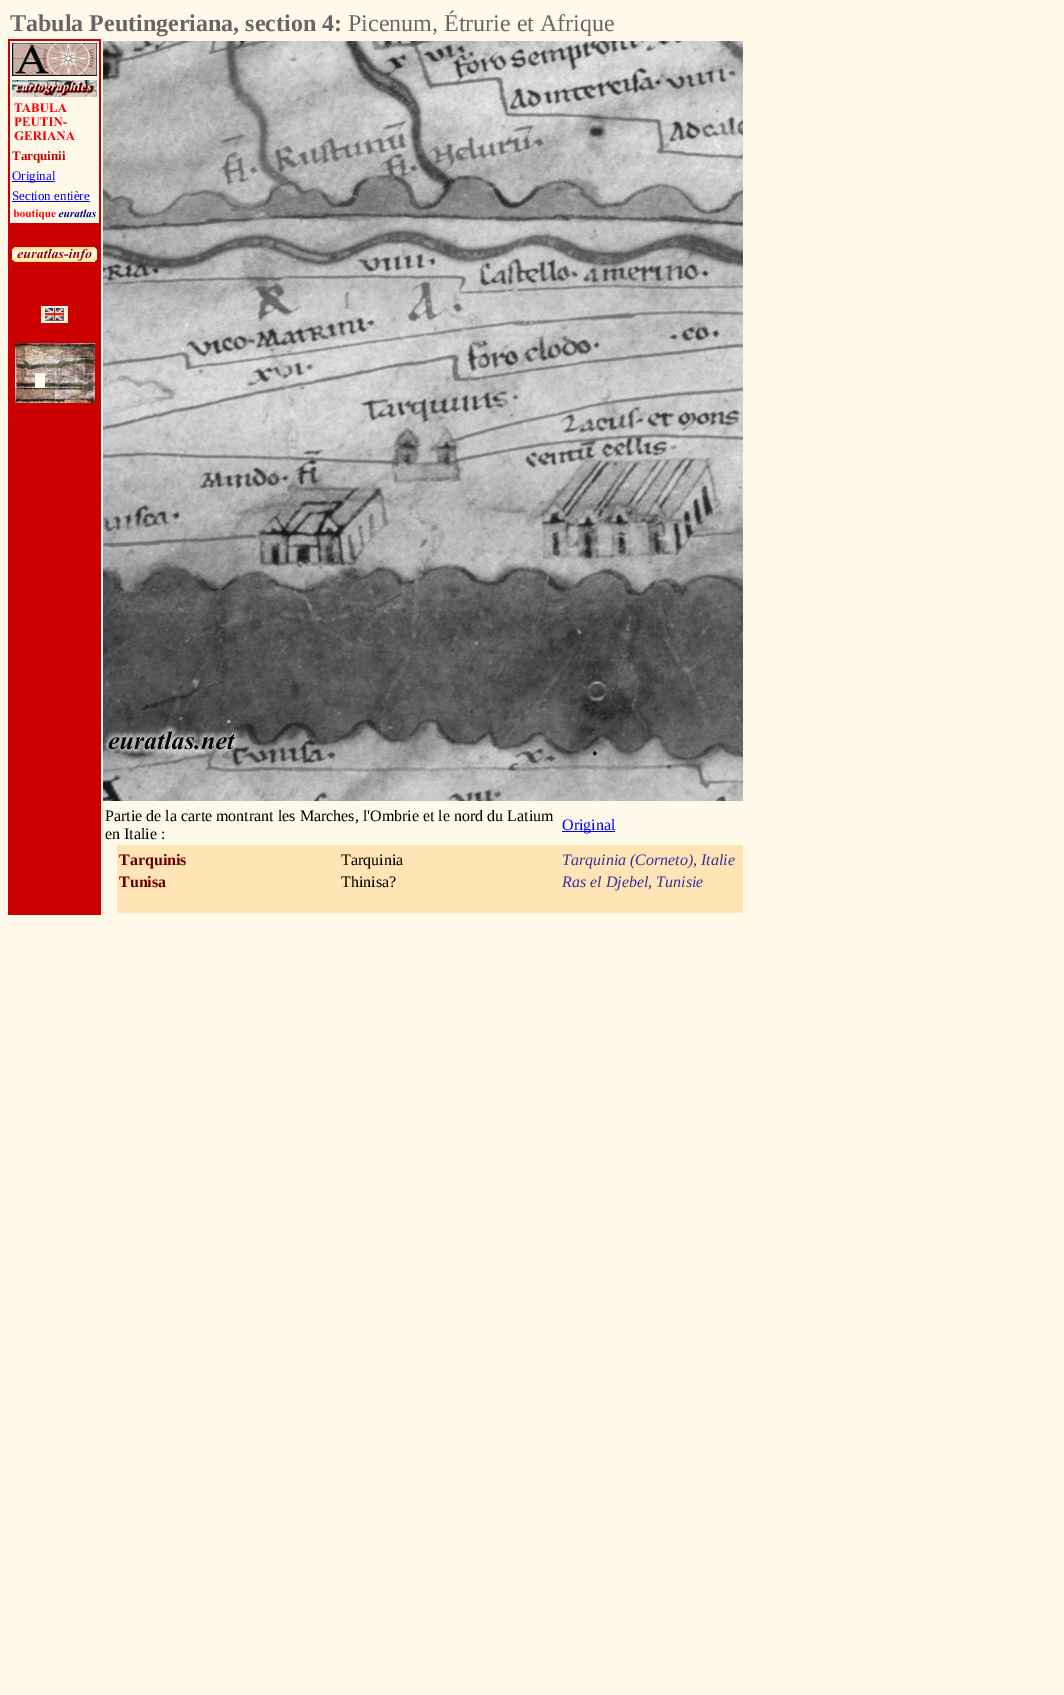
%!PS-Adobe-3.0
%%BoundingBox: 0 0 1064 1695
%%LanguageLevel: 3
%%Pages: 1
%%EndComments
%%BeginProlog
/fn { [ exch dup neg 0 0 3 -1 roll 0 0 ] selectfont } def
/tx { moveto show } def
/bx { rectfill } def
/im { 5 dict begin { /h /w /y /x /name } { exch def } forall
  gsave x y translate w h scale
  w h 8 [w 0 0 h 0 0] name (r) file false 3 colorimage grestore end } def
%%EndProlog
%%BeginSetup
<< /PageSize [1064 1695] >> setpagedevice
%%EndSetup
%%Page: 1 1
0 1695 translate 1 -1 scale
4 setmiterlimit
0.996 0.976 0.914 setrgbcolor
0 0 1064 1695 bx
/LiberationSerif-Bold 24 fn
0.4 setgray
(Tabula Peutingeriana, section 4:) 10 31 tx
/LiberationSerif-Regular 24 fn
(Picenum, Étrurie et Afrique) 348 31 tx
0.8 0 0 setrgbcolor
8 39 93 876 bx
0.996 0.976 0.914 setrgbcolor
10 41 89 182 bx
(image0.raw) 12 43 85 33 im
(image1.raw) 12 80 85 17 im
(image2.raw) 14 103 61 38 im
/LiberationSerif-Bold 13 fn
0.8 0 0 setrgbcolor
(Tarquinii) 12 160 tx
0 0 1 setrgbcolor
12 181 43 1 bx
/LiberationSerif-Regular 13 fn
(Original) 12 180 tx
(Section entière) 12 200 tx
12 201 78 1 bx
(image3.raw) 13 209 84 11 im
(image4.raw) 12 247 85 15 im
(image5.raw) 41 306 27 17 im
0.996 0.976 0.914 setrgbcolor
35 373 10 15 bx
(image6.raw) 15 343 10 15 im
(image7.raw) 25 343 10 15 im
(image8.raw) 35 343 10 15 im
(image9.raw) 45 343 10 15 im
(image10.raw) 55 343 10 15 im
(image11.raw) 65 343 10 15 im
(image12.raw) 75 343 10 15 im
(image13.raw) 85 343 10 15 im
(image14.raw) 15 358 10 15 im
(image15.raw) 25 358 10 15 im
(image16.raw) 35 358 10 15 im
(image17.raw) 45 358 10 15 im
(image18.raw) 55 358 10 15 im
(image19.raw) 65 358 10 15 im
(image20.raw) 75 358 10 15 im
(image21.raw) 85 358 10 15 im
(image22.raw) 15 373 10 15 im
(image23.raw) 25 373 10 15 im
(image24.raw) 45 373 10 15 im
(image25.raw) 55 373 10 15 im
(image26.raw) 65 373 10 15 im
(image27.raw) 75 373 10 15 im
(image28.raw) 85 373 10 15 im
(image29.raw) 15 388 10 15 im
(image30.raw) 25 388 10 15 im
(image31.raw) 35 388 10 15 im
(image32.raw) 45 388 10 15 im
(image33.raw) 55 388 10 15 im
(image34.raw) 65 388 10 15 im
(image35.raw) 75 388 10 15 im
(image36.raw) 85 388 10 15 im
(image37.raw) 103 41 640 760 im
/LiberationSerif-Regular 16 fn
0 setgray
(Partie de la carte montrant les Marches, l'Ombrie et le nord du Latium) 105 821 tx
(en Italie :) 105 839 tx
0 0 1 setrgbcolor
562 831 53 1 bx
(Original) 562 830 tx
1 0.894 0.71 setrgbcolor
117 845 626 4 bx
117 849 626 22 bx
/LiberationSerif-Bold 16 fn
0.4 0 0 setrgbcolor
(Tarquinis) 119 865 tx
/LiberationSerif-Regular 16 fn
0 setgray
(Tarquinia) 341 865 tx
/LiberationSerif-Italic 16 fn
0.2 0.2 0.6 setrgbcolor
(Tarquinia \(Corneto\), Italie) 562 865 tx
1 0.894 0.71 setrgbcolor
117 871 626 22 bx
/LiberationSerif-Bold 16 fn
0.4 0 0 setrgbcolor
(Tunisa) 119 887 tx
/LiberationSerif-Regular 16 fn
0 setgray
(Thinisa?) 341 887 tx
/LiberationSerif-Italic 16 fn
0.2 0.2 0.6 setrgbcolor
(Ras el Djebel, Tunisie) 562 887 tx
1 0.894 0.71 setrgbcolor
117 893 626 4 bx
117 897 626 4 bx
117 901 626 4 bx
117 905 626 4 bx
117 909 626 4 bx
showpage
%%EOF
